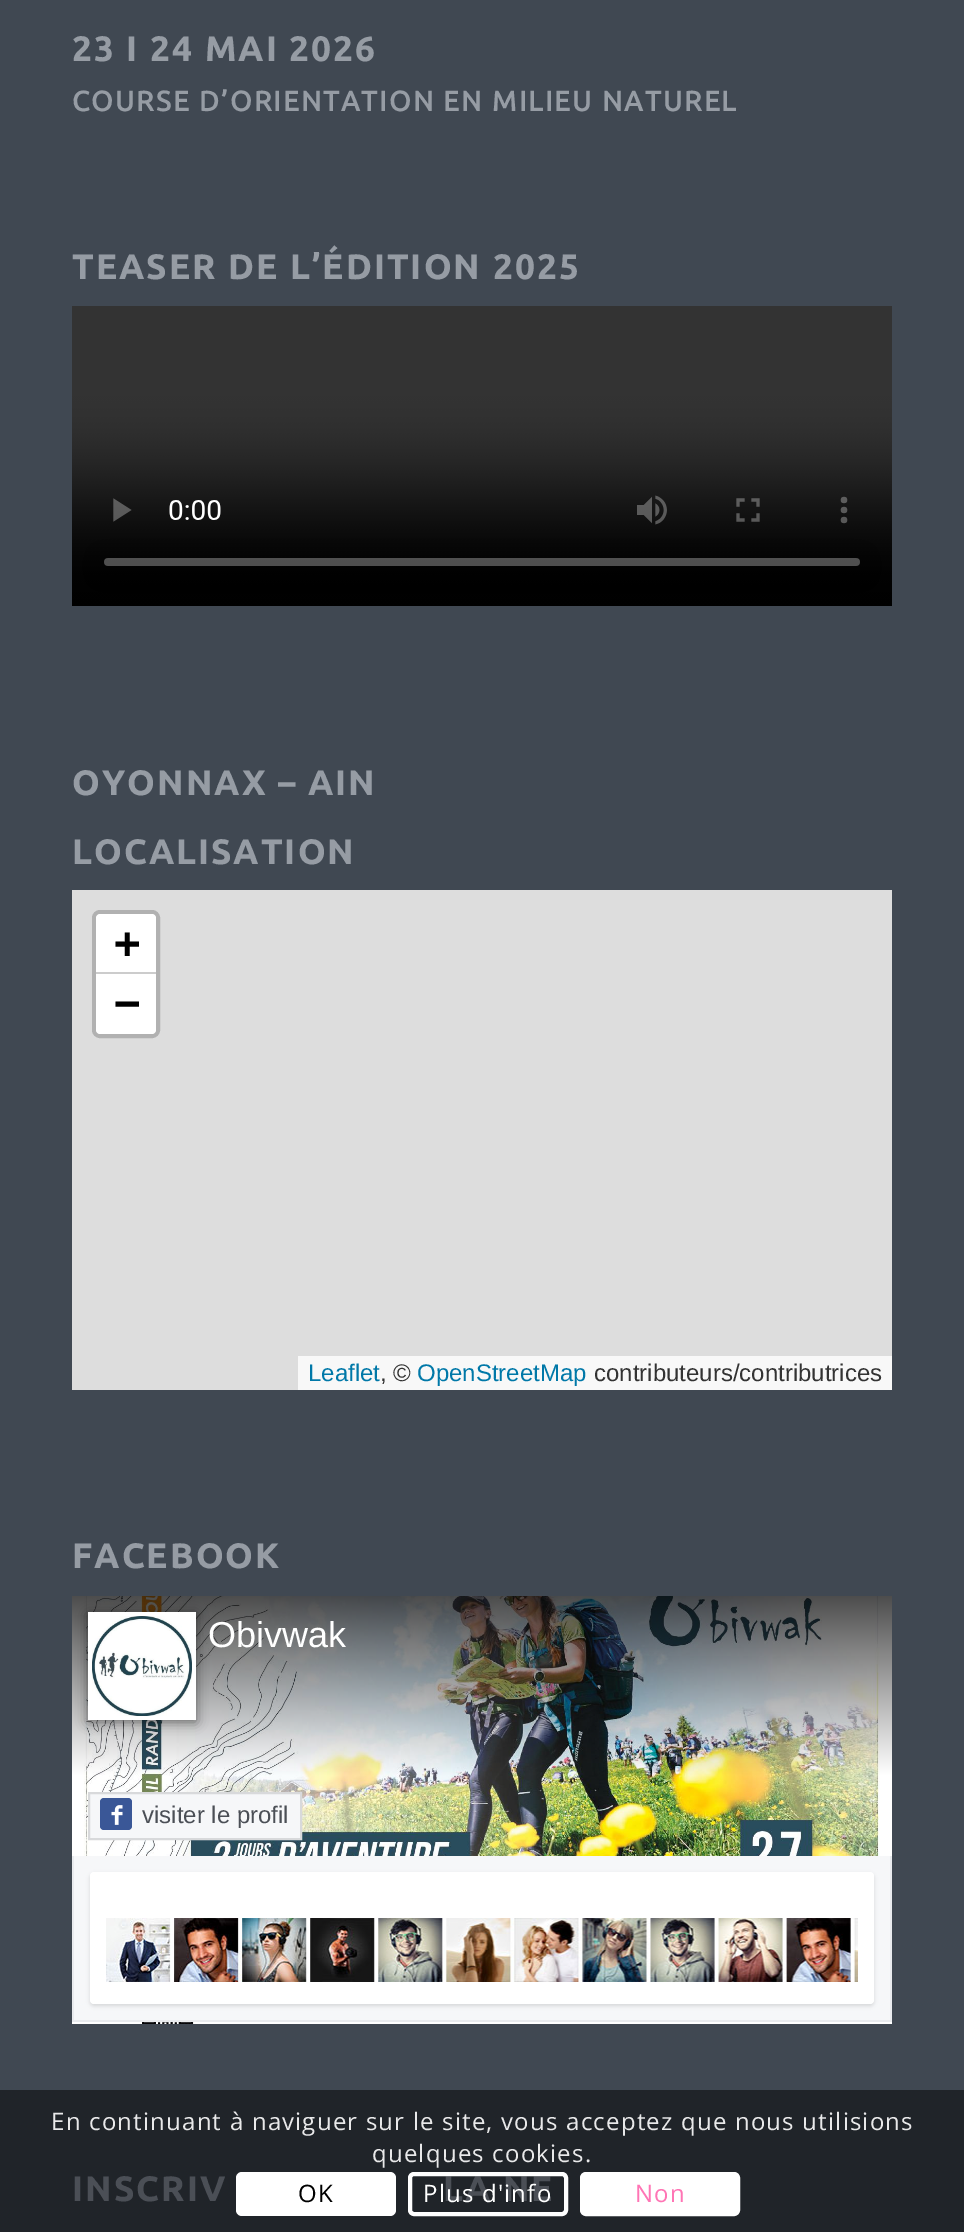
%!PS-Adobe-3.0
%%BoundingBox: 0 0 964 2232
%%LanguageLevel: 3
%%Pages: 1
%%EndComments
%%BeginProlog
/m { moveto } bind def
/l { lineto } bind def
/c { curveto } bind def
/h { closepath } bind def
/f { fill } bind def
/S { stroke } bind def
/q { gsave } bind def
/Q { grestore } bind def
/w { setlinewidth } bind def
/fn { [ exch dup neg 0 0 3 -1 roll 0 0 ] selectfont } def
/tx { moveto show } def
/bx { rectfill } def
/al { dup .setfillconstantalpha .setstrokeconstantalpha } def
/rr { 5 dict begin { /r /h /w /y /x } { exch def } forall
  x r add y moveto x w add y 2 copy h add r arct x w add y h add x 1 index r arct
  x y h add x y r arct x y 2 copy exch w add exch r arct closepath end } def
/sh { 12 dict begin { /a /b /q /h /w /y /x } { exch def } forall gsave /was 0 def
  9 -2 -9 { dup b mul 4 div /e exch def 1 sub .425 mul 2.718 exch exp 1 add a .99 .min exch div /now exch def
    1 1 now sub 1 was sub div sub al /was now def
    w h .min e 2 mul add 0 gt { x e sub y e sub w e 2 mul add h e 2 mul add
      q e add b .6 mul add w h .min 2 div e add .min 0 .max rr fill } if } for grestore end } def
/im { 5 dict begin { /h /w /y /x /name } { exch def } forall
  gsave x y translate w h scale
  w h 8 [w 0 0 h 0 0] name (r) file false 3 colorimage grestore end } def
%%EndProlog
%%BeginSetup
<< /PageSize [964 2232] /PageUsesTransparency true >> setpagedevice
%%EndSetup
%%Page: 1 1
0 .pushpdf14devicefilter
0 2232 translate 1 -1 scale
4 setmiterlimit
0.251 0.282 0.322 setrgbcolor
0 0 964 2232 bx
0.125 0.141 0.161 setrgbcolor
0 2090 964 142 bx
/Ubuntu-Bold 35.25 fn
0.588 0.612 0.643 setrgbcolor
72 61 m 2 0 (23 I 24 MAI 2026) ashow
/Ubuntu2-Bold 28 fn
72 111 m 2 0 (COURSE D’ORIENTATION EN MILIEU NATUREL) ashow
/Ubuntu-Bold 35.25 fn
72 279 m 2 0 (TEASER DE L’ÉDITION 2025) ashow
(image0.raw) 72 306 820 300 im
72 795 m 2 0 (OYONNAX – AIN) ashow
72 864 m 2 0 (LOCALISATION) ashow
0.867 setgray
72 890 820 500 bx
0.694 setgray
4 w
94 912 64 124 6 rr S
1 setgray
100 914 m 152 914 l 154 914 156 916 156 918 c 156 974 l 96 974 l 96 918 l 96 916 98 914 100 914 c h f
0.8 setgray
96 972 60 2 bx
/DejaVuSansMono-Bold 44 fn
0 setgray
(+) 114 958 tx
1 setgray
96 974 m 156 974 l 156 1030 l 156 1032 154 1034 152 1034 c 100 1034 l 98 1034 96 1032 96 1030 c h f
0 setgray
(−) 114 1018 tx
0.973 setgray
298 1356 594 34 bx
/LiberationSans-Regular 24 fn
0 0.471 0.659 setrgbcolor
(Leaflet) 308 1381 tx
0.2 setgray
(, ©) 380 1381 tx
0 0.471 0.659 setrgbcolor
(OpenStreetMap) 417 1381 tx
0.2 setgray
(contributeurs/contributrices) 594 1381 tx
/Ubuntu-Bold 35.25 fn
0.588 0.612 0.643 setrgbcolor
72 1568 m 2 0 (FACEBOOK) ashow
(image1.raw) 72 1596 820 428 im
0 setgray
88 1614 108 108 0 6 0.5 sh
1 setgray
88 1612 108 108 bx
(image2.raw) 92 1616 100 100 im
/LiberationSans-Regular 36 fn
(Obivwak) 208 1647 tx
0.965 0.969 0.976 setrgbcolor
89 1793 m 301 1793 l 301 1839 l 89 1839 l h q f Q
0.847 0.851 0.859 setrgbcolor
2 w
S
0.227 0.341 0.592 setrgbcolor
100 1798 32 32 4 rr f
(image3.raw) 111 1805 12 20 im
/LiberationSans-Regular 24 fn
0.294 0.31 0.337 setrgbcolor
(visiter le profil) 142 1823 tx
0.965 0.969 0.976 setrgbcolor
74 1856 816 164 bx
0.914 0.922 0.933 setrgbcolor
890 1856 2 166 bx
72 2020 820 2 bx
72 1856 2 166 bx
0 setgray
90 1874 784 132 4 2 0.12 sh
1 setgray
90 1872 784 132 4 rr f
(image4.raw) 106 1918 752 64 im
/Ubuntu-Bold 35.25 fn
0.294 0.31 0.337 setrgbcolor
72 2201 m 2 0 (INSCRIV) ashow
443 2201 m 2 0 (LA NE) ashow
/OpenSans-Regular 24 fn
0.914 0.914 0.918 setrgbcolor
51 2130 m 1.2 0 (En continuant à naviguer sur le site, vous acceptez que nous utilisions) ashow
372 2162 m 1.2 0 (quelques cookies.) ashow
1 setgray
236 2172 160 44 6 rr f
0 setgray
298 2202 m 1.2 0 (OK) ashow
1 setgray
4 w
410 2174 156 40 4 rr S
423 2202 m 1.2 0 (Plus d'info) ashow
582 2174 156 40 4 rr q f Q
S
1 0.459 0.71 setrgbcolor
635 2202 m 1.2 0 (Non) ashow
.poppdf14devicefilter showpage
%%EOF
